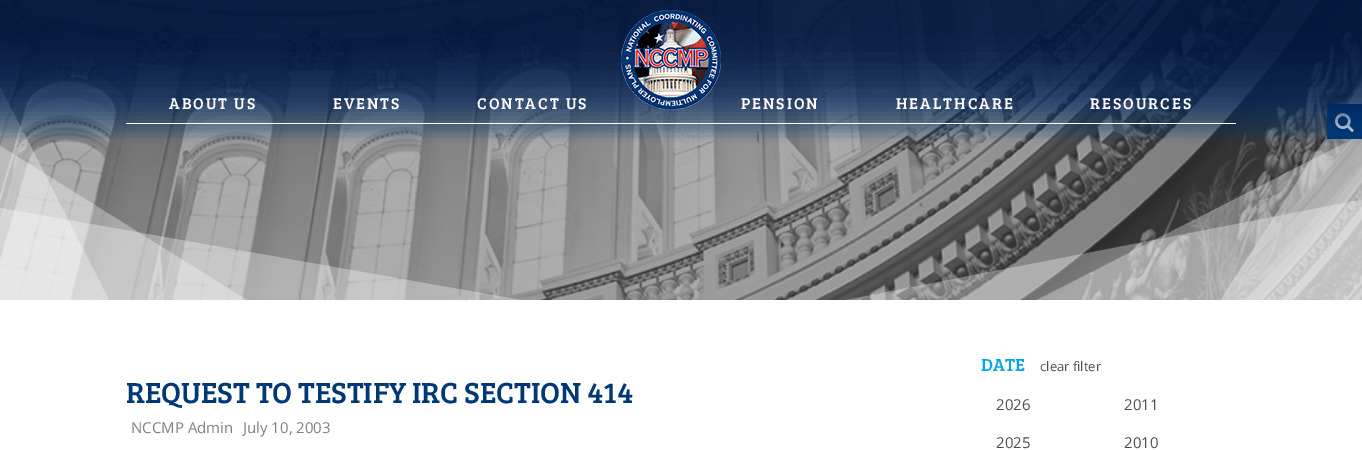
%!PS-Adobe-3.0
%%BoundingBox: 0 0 1362 450
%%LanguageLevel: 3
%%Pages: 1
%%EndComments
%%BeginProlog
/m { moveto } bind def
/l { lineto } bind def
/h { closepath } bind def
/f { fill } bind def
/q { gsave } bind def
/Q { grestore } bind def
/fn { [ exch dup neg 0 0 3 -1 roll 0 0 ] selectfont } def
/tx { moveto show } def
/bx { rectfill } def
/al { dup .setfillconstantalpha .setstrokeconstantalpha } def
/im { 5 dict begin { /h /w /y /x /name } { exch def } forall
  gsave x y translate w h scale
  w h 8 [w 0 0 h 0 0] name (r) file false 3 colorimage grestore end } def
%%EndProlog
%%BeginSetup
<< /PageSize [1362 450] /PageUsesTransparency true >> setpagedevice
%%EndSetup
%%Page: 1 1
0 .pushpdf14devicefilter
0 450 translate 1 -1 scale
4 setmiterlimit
1 setgray
0 0 1362 450 bx
(image0.raw) 0 0 1362 300 im
q
0 0 1362 300 rectclip
0.33 al
-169 -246 m 449 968 l 333 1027 l -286 -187 l h f
866 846 m 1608 -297 l 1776 -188 l 1034 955 l h f
-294 -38 m 861 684 l 702 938 l -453 216 l h f
552 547 m 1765 -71 l 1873 140 l 659 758 l h f
-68 196 m 1274 433 l 1239 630 l -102 393 l h f
239 418 m 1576 158 l 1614 354 l 277 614 l h f
Q
0 0.22 0.463 setrgbcolor
1327 104 35 35 bx
(image3.raw) 1335 113 19 19 im
(image1.raw) 0 0 1362 143 im
/BreeSerif-Regular 16 fn
1 setgray
169 109 m 2 0 (ABOUT US) ashow
333 109 m 2 0 (EVENTS) ashow
477 109 m 2 0 (CONTACT US) ashow
(image2.raw) 621 10 100 100 im
741 109 m 2 0 (PENSION) ashow
896 109 m 2 0 (HEALTHCARE) ashow
1090 109 m 2 0 (RESOURCES) ashow
126 123 1110 1 bx
/BreeSerif-Regular 30 fn
0 0.22 0.463 setrgbcolor
(REQUEST TO TESTIFY IRC SECTION 414) 126 403 tx
/OpenSans-Regular 15 fn
0.502 setgray
(NCCMP Admin) 131 433 tx
(July 10, 2003) 243 433 tx
/BreeSerif-Regular 18 fn
0 0.651 0.906 setrgbcolor
(DATE) 981 371 tx
/OpenSans-Regular 13 fn
0.302 setgray
(clear filter) 1040 371 tx
/OpenSans-Regular 15 fn
(2026) 996 410 tx
(2011) 1124 410 tx
(2025) 996 448 tx
(2010) 1124 448 tx
.poppdf14devicefilter showpage
%%EOF
